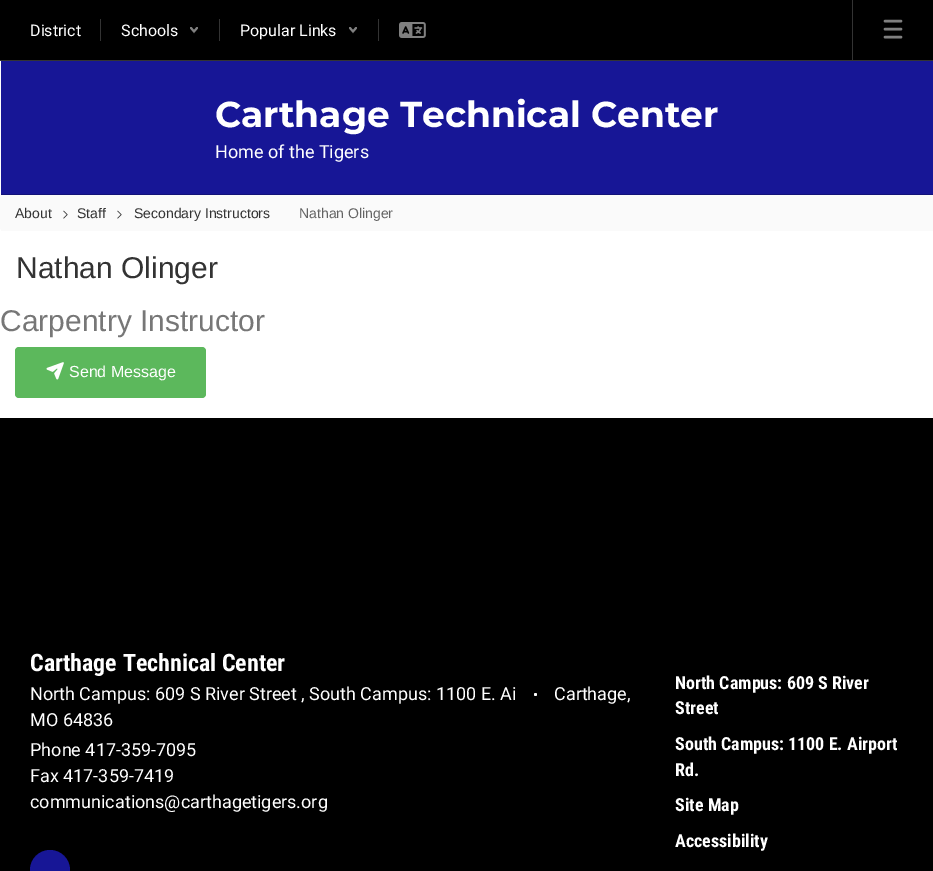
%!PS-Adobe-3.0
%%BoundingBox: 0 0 933 871
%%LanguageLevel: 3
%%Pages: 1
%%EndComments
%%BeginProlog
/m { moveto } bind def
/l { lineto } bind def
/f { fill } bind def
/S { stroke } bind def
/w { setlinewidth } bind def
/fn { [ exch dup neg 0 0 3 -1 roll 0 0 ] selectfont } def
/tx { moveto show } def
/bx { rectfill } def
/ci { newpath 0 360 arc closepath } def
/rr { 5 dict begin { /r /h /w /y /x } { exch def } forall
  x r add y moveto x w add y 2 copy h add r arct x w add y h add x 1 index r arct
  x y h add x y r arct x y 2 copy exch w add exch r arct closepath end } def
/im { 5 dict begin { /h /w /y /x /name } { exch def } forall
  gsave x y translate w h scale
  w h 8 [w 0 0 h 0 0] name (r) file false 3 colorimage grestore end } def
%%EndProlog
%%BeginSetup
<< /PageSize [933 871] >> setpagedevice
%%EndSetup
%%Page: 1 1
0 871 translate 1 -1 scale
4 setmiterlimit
1 setgray
0 0 933 871 bx
0 setgray
0 0 933 60 bx
0.2 setgray
0 60 933 1 bx
/Roboto-Regular 16 fn
1 setgray
(District) 30 36 tx
0.2 setgray
100 19 1 22 bx
1 setgray
(Schools) 121 36 tx
0.502 setgray
2 w
1 setlinecap
191 28 m 194 31.5 l 197 28 l S
0.2 setgray
219 19 1 22 bx
1 setgray
(Popular Links) 240 36 tx
0.502 setgray
350 28 m 353 31.5 l 356 28 l S
0.2 setgray
378 19 1 22 bx
(image0.raw) 399 22 27 16 im
852 0 1 60 bx
0.502 setgray
2.5 w
885 21 m 901 21 l 885 29 m 901 29 l 885 37 m 901 37 l S
0.09 0.086 0.588 setrgbcolor
1 61 932 133 bx
/Montserrat-Thin 36 fn
1 setgray
(Carthage Technical Center) 215 127 tx
/Roboto-Regular 18 fn
(Home of the Tigers) 215 158 tx
0.071 0.071 0.471 setrgbcolor
1 194 932 1 bx
0.98 setgray
0 195 933 36 4 rr f
1 195 932 36 bx
/LiberationSans-Regular 14 fn
0.2 setgray
(About) 15 218 tx
(image1.raw) 63 210 5 9 im
(Staff) 77 218 tx
(image1.raw) 117 210 5 9 im
(Secondary Instructors) 134 218 tx
0.388 setgray
(Nathan Olinger) 299 218 tx
/LiberationSans-Regular 30 fn
0.2 setgray
(Nathan Olinger) 16 278 tx
0.467 setgray
(Carpentry Instructor) 0 331 tx
0.361 0.722 0.361 setrgbcolor
15 347 191 51 4 rr f
(image2.raw) 46 362 18 18 im
/LiberationSans-Regular 16 fn
1 setgray
(Send Message) 69 377 tx
0 setgray
0 418 933 453 bx
/RobotoCondensed-Bold 24 fn
1 setgray
(Carthage Technical Center) 30 671 tx
/Roboto-Regular 18 fn
(North Campus: 609 S River Street , South Campus: 1100 E. Ai) 30 700 tx
535.5 694.5 1.5 ci f
(Carthage,) 554 700 tx
(MO 64836) 30 726 tx
(Phone 417-359-7095) 30 756 tx
(Fax 417-359-7419) 30 782 tx
(communications@carthagetigers.org) 30 808 tx
0.09 0.086 0.588 setrgbcolor
50 870 20 ci f
/RobotoCondensed-Bold 18 fn
1 setgray
(North Campus: 609 S River) 675 689 tx
(Street) 675 714 tx
(South Campus: 1100 E. Airport) 675 750 tx
(Rd.) 675 776 tx
(Site Map) 675 811 tx
(Accessibility) 675 847 tx
showpage
%%EOF
